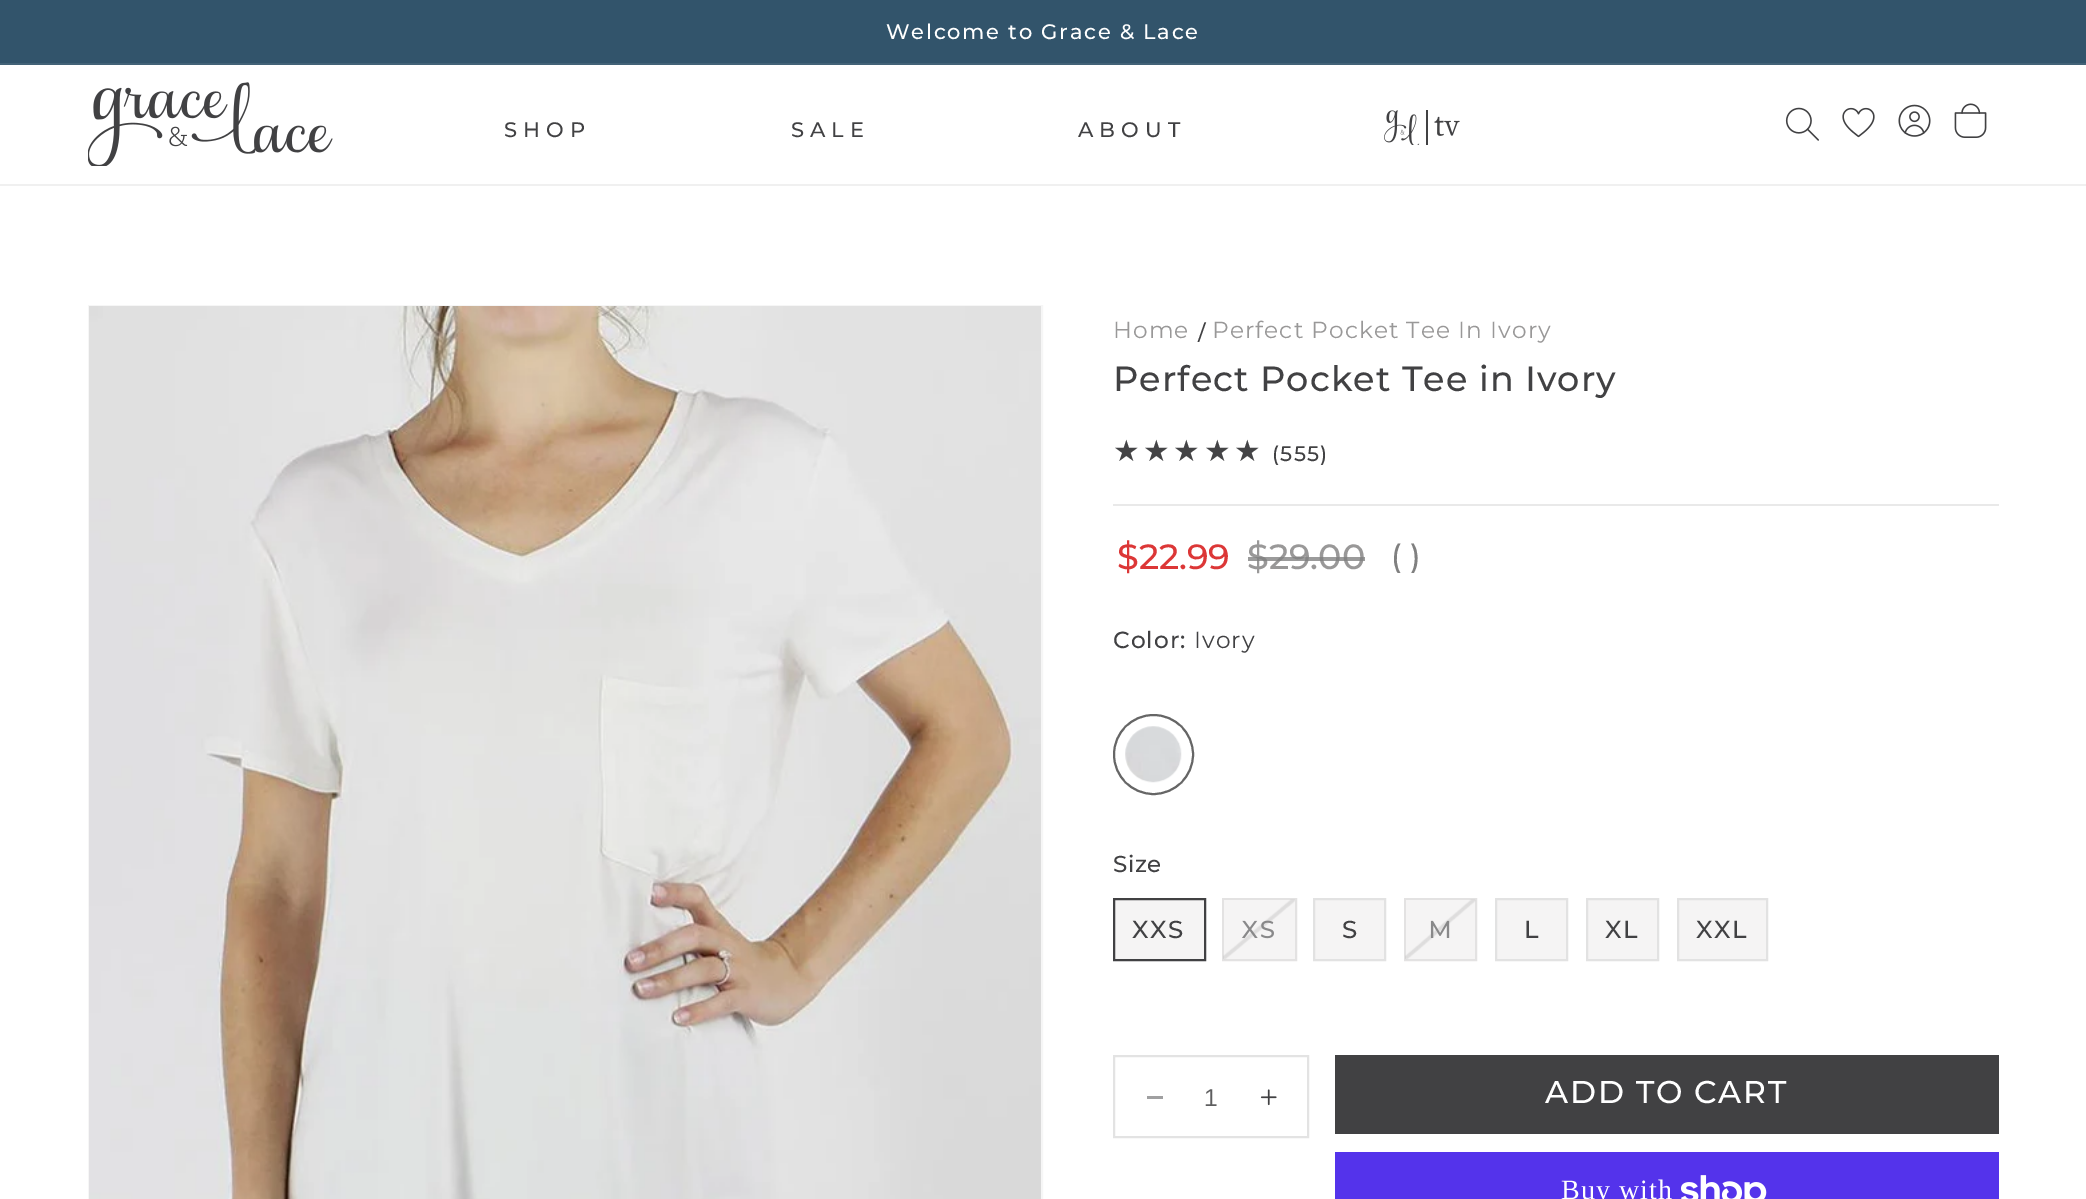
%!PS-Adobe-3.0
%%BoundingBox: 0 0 2086 1199
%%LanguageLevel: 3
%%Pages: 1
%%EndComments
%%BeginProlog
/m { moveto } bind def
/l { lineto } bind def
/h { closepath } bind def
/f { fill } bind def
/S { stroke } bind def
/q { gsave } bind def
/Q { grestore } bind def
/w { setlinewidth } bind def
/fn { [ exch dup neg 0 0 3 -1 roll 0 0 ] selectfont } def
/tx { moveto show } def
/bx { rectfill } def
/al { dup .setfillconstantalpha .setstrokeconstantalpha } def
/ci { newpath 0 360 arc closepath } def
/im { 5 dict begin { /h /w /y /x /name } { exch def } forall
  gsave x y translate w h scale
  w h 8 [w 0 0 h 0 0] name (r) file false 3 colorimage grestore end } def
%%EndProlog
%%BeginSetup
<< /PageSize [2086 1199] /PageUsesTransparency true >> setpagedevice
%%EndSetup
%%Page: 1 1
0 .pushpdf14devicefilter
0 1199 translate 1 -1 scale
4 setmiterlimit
1 setgray
0 0 2086 1199 bx
0.196 0.329 0.42 setrgbcolor
0 0 2086 63 bx
0.259 0.384 0.467 setrgbcolor
0 63 2086 2 bx
/Montserrat-Medium 21 fn
1 setgray
886 39 m 1.75 0 (Welcome to Grace & Lace) ashow
0.941 setgray
0 184 2086 2 bx
(image0.raw) 88 82 245 84 im
0.255 0.255 0.263 setrgbcolor
504 137 m 6 0 (SHOP) ashow
791 137 m 6 0 (SALE) ashow
1078 137 m 6 0 (ABOUT) ashow
(image1.raw) 1384 110 76 35 im
(image2.raw) 1785 107 34 34 im
(image3.raw) 1842 107 33 31 im
(image4.raw) 1898 104 33 33 im
(image5.raw) 1954 103 33 35 im
0.965 setgray
2 w
89 306 953 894 rectstroke
(image6.raw) 89 306 952 893 im
/Montserrat-Regular 23.3 fn
0.6 0.596 0.596 setrgbcolor
1113 338 m 1.05 0 (Home) ashow
/Montserrat-Medium 21 fn
0.255 0.255 0.263 setrgbcolor
1198 340 m 1.05 0 (/) ashow
/Montserrat-Regular 23.3 fn
0.6 0.596 0.596 setrgbcolor
1212 338 m 1.05 0 (Perfect Pocket Tee In Ivory) ashow
/Montserrat-Medium 35 fn
0.255 0.255 0.263 setrgbcolor
1113 391 m 1.05 0 (Perfect Pocket Tee in Ivory) ashow
/DejaVuSans-Regular 29.75 fn
0.267 0.267 0.275 setrgbcolor
1113 461 m 3.5 0 (★★★★★) ashow
/Montserrat-Medium 21 fn
0.255 0.255 0.263 setrgbcolor
1272 461 m 1.25 0 (\(555\)) ashow
0.914 setgray
1113 504 886 2 bx
/Montserrat-Medium 35 fn
0.863 0.216 0.216 setrgbcolor
($22.99) 1117 569 tx
0.6 0.596 0.596 setrgbcolor
($29.00) 1247 569 tx
0.79 al
0.502 setgray
1248 557 117 4 bx
/Montserrat-Medium 31.5 fn
1 al
(\( \)) 1391 567 tx
/Montserrat-Medium 23.3 fn
0.255 0.255 0.263 setrgbcolor
1113 648 m 1.05 0 (Color:) ashow
/Montserrat-Regular 23.3 fn
1194 648 m 1.05 0 (Ivory) ashow
0.4 setgray
1153.5 754.5 39.5 ci S
(image7.raw) 1125 726 57 57 im
/Montserrat-Medium 23 fn
0.255 0.255 0.263 setrgbcolor
1113 872 m 0.5 0 (Size) ashow
0.961 0.957 0.957 setrgbcolor
1114 899 m 1205 899 l 1205 960 l 1114 960 l h q f Q
0.255 0.255 0.263 setrgbcolor
S
/Montserrat-Medium 24.5 fn
1132 938 m 1.75 0 (XXS) ashow
0.961 0.957 0.957 setrgbcolor
1223 899 m 1296 899 l 1296 960 l 1223 960 l h q f Q
0.89 0.886 0.886 setrgbcolor
S
0.537 0.537 0.541 setrgbcolor
1242 938 m 1.75 0 (XS) ashow
(image8.raw) 1223 899 72 61 im
0.961 0.957 0.957 setrgbcolor
1314 899 m 1385 899 l 1385 960 l 1314 960 l h q f Q
0.886 setgray
S
0.255 0.255 0.263 setrgbcolor
1342 938 m 1.75 0 (S) ashow
0.961 0.957 0.957 setrgbcolor
1405 899 m 1476 899 l 1476 960 l 1405 960 l h q f Q
0.89 0.886 0.886 setrgbcolor
S
0.537 0.537 0.541 setrgbcolor
1428 938 m 1.75 0 (M) ashow
(image9.raw) 1405 899 71 61 im
0.961 0.957 0.957 setrgbcolor
1496 899 m 1567 899 l 1567 960 l 1496 960 l h q f Q
0.886 setgray
S
0.255 0.255 0.263 setrgbcolor
1524 938 m 1.75 0 (L) ashow
0.961 0.957 0.957 setrgbcolor
1587 899 m 1658 899 l 1658 960 l 1587 960 l h q f Q
0.886 setgray
S
0.255 0.255 0.263 setrgbcolor
1605 938 m 1.75 0 (XL) ashow
0.961 0.957 0.957 setrgbcolor
1678 899 m 1767 899 l 1767 960 l 1678 960 l h q f Q
0.886 setgray
S
0.255 0.255 0.263 setrgbcolor
1696 938 m 1.75 0 (XXL) ashow
0.627 0.627 0.631 setrgbcolor
1147 1096 16 3 bx
(image10.raw) 1260 1089 17 17 im
0.89 setgray
1114 1056 194 81 rectstroke
/LiberationSans-Regular 24.5 fn
0.369 0.369 0.373 setrgbcolor
(1) 1204 1106 tx
0.255 0.255 0.263 setrgbcolor
1335 1055 664 79 bx
/Montserrat-Medium 31.5 fn
1 setgray
1545 1103 m 1.75 0 (ADD TO CART) ashow
0.329 0.2 0.922 setrgbcolor
1335 1152 664 47 bx
/LiberationSerif-Regular 28 fn
1 setgray
1561 1199 m 1.05 0 (Buy with) ashow
(image11.raw) 1681 1175 86 24 im
.poppdf14devicefilter showpage
%%EOF
